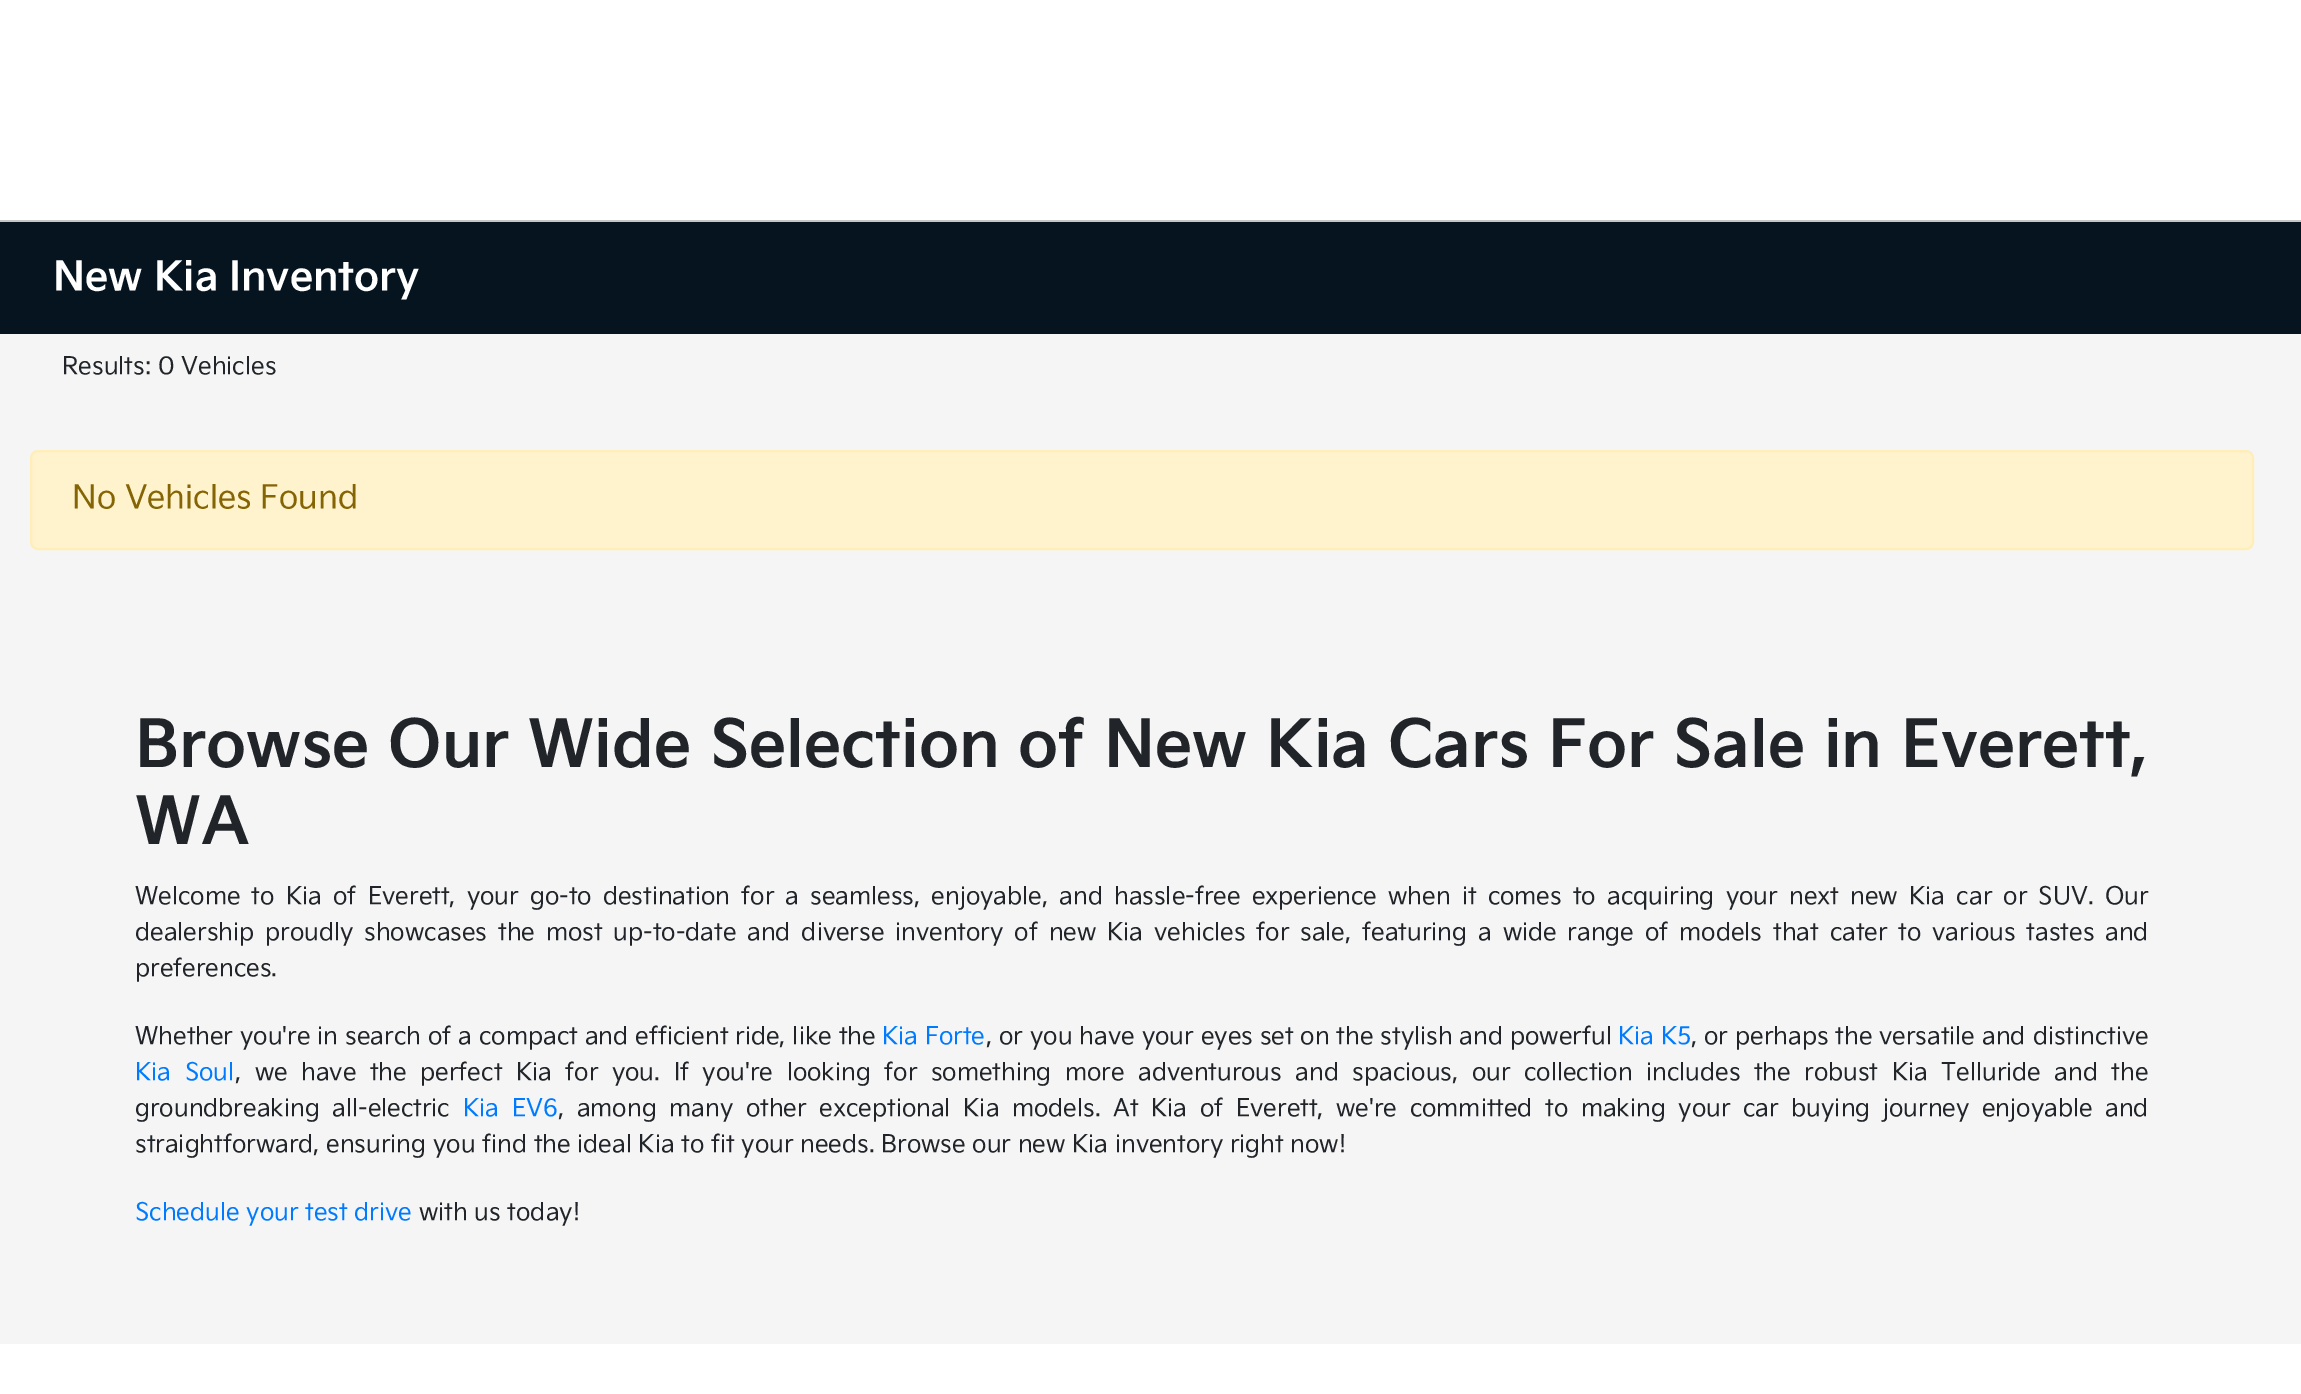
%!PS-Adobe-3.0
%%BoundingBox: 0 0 2301 1394
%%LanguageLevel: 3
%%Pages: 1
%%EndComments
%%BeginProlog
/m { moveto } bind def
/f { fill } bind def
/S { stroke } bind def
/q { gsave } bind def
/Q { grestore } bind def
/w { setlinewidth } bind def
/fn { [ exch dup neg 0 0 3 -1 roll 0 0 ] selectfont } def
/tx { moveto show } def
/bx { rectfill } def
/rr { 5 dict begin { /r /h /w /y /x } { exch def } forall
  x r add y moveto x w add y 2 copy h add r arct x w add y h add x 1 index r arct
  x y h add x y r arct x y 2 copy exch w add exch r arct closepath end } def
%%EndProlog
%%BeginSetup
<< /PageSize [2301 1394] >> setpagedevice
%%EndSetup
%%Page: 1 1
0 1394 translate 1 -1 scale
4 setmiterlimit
1 setgray
0 0 2301 1394 bx
0.961 setgray
0 334 2301 1010 bx
0.02 0.078 0.122 setrgbcolor
0 222 2301 112 bx
0.776 setgray
0 220 2301 2 bx
/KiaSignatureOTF-Bold 40 fn
1 setgray
(New Kia Inventory) 53 290 tx
/KiaSignatureOTF-Regular 24 fn
0.129 0.145 0.161 setrgbcolor
(Results: 0 Vehicles) 62 374 tx
1 0.953 0.804 setrgbcolor
31 451 2222 98 7 rr q f Q
1 0.933 0.729 setrgbcolor
2 w
S
/KiaSignatureOTF-Regular 32 fn
0.522 0.392 0.016 setrgbcolor
(No Vehicles Found) 72 508 tx
/KiaSignatureOTF-Bold 64 fn
0.129 0.145 0.161 setrgbcolor
135 766 m 0.9 0 32 (Browse Our Wide Selection of New Kia Cars For Sale in Everett,) widthshow
(WA) 135 843 tx
/KiaSignatureOTF-Regular 24 fn
135 904 m 4.5 0 32 (Welcome to Kia of Everett, your go-to destination for a seamless, enjoyable, and hassle-free experience when it comes to acquiring your next new Kia car or SUV. Our) widthshow
135 940 m 4.2 0 32 (dealership proudly showcases the most up-to-date and diverse inventory of new Kia vehicles for sale, featuring a wide range of models that cater to various tastes and) widthshow
(preferences.) 135 976 tx
135 1044 m 0.25 0 32 (Whether you're in search of a compact and efficient ride, like the) widthshow
0 0.482 1 setrgbcolor
(Kia Forte) 882 1044 tx
0.129 0.145 0.161 setrgbcolor
986 1044 m 0.25 0 32 (, or you have your eyes set on the stylish and powerful) widthshow
0 0.482 1 setrgbcolor
(Kia K5) 1618 1044 tx
0.129 0.145 0.161 setrgbcolor
1691 1044 m 0.25 0 32 (, or perhaps the versatile and distinctive) widthshow
0 0.482 1 setrgbcolor
135 1080 m 6.8 0 32 (Kia Soul) widthshow
0.129 0.145 0.161 setrgbcolor
235 1080 m 6.8 0 32 (, we have the perfect Kia for you. If you're looking for something more adventurous and spacious, our collection includes the robust Kia Telluride and the) widthshow
135 1116 m 5.9 0 32 (groundbreaking all-electric) widthshow
0 0.482 1 setrgbcolor
463 1116 m 5.9 0 32 (Kia EV6) widthshow
0.129 0.145 0.161 setrgbcolor
558 1116 m 5.9 0 32 (, among many other exceptional Kia models. At Kia of Everett, we're committed to making your car buying journey enjoyable and) widthshow
(straightforward, ensuring you find the ideal Kia to fit your needs. Browse our new Kia inventory right now!) 135 1152 tx
0 0.482 1 setrgbcolor
(Schedule your test drive) 135 1220 tx
0.129 0.145 0.161 setrgbcolor
(with us today!) 419 1220 tx
showpage
%%EOF
